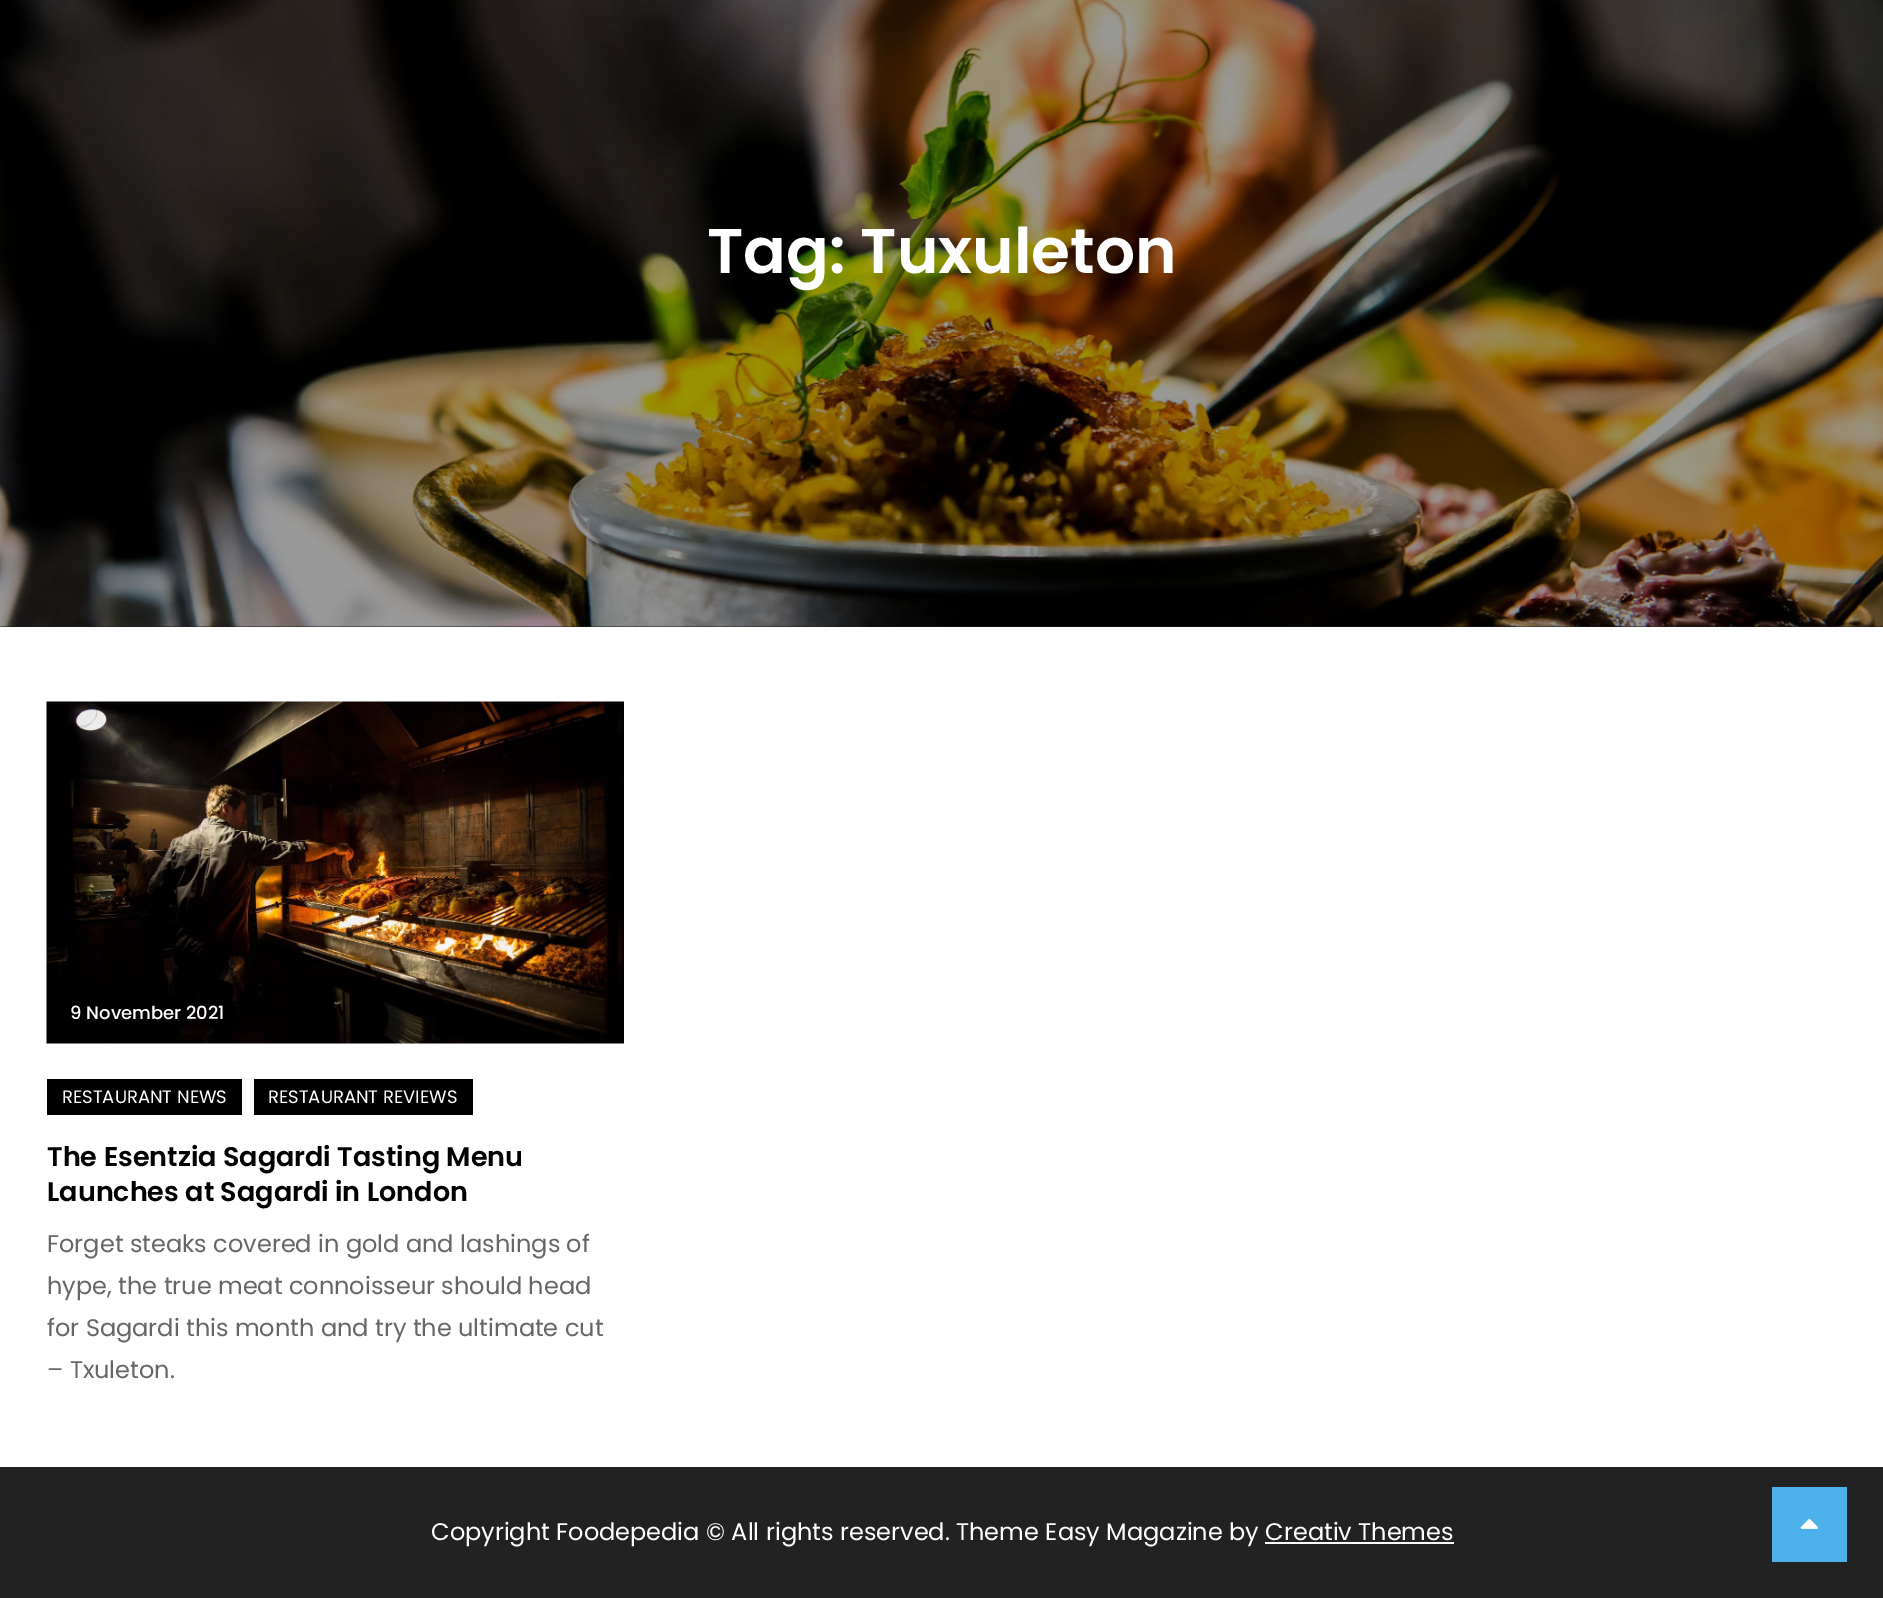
%!PS-Adobe-3.0
%%BoundingBox: 0 0 1883 1598
%%LanguageLevel: 3
%%Pages: 1
%%EndComments
%%BeginProlog
/fn { [ exch dup neg 0 0 3 -1 roll 0 0 ] selectfont } def
/tx { moveto show } def
/bx { rectfill } def
/al { dup .setfillconstantalpha .setstrokeconstantalpha } def
/im { 5 dict begin { /h /w /y /x /name } { exch def } forall
  gsave x y translate w h scale
  w h 8 [w 0 0 h 0 0] name (r) file false 3 colorimage grestore end } def
%%EndProlog
%%BeginSetup
<< /PageSize [1883 1598] /PageUsesTransparency true >> setpagedevice
%%EndSetup
%%Page: 1 1
0 .pushpdf14devicefilter
0 1598 translate 1 -1 scale
4 setmiterlimit
1 setgray
0 0 1883 1598 bx
0.122 setgray
0 626 1883 1 bx
(image0.raw) 0 0 1883 627 im
/Poppins-SemiBold 63 fn
1 setgray
(Tag: Tuxuleton) 707 273 tx
(image1.raw) 46 701 578 343 im
0.5 al
0 setgray
167 996 42 33 bx
/Poppins-Medium 18 fn
1 al
1 setgray
(9 November 2021) 70 1019 tx
0 setgray
47 1079 195 36 bx
/Poppins-Regular 18 fn
1 setgray
(RESTAURANT NEWS) 62 1103 tx
0 setgray
254 1079 219 36 bx
1 setgray
(RESTAURANT REVIEWS) 268 1103 tx
/Poppins-SemiBold 27 fn
0 setgray
(The Esentzia Sagardi Tasting Menu) 47 1166 tx
(Launches at Sagardi in London) 47 1201 tx
/Poppins-Regular 24 fn
0.4 setgray
(Forget steaks covered in gold and lashings of) 47 1252 tx
(hype, the true meat connoisseur should head) 47 1294 tx
(for Sagardi this month and try the ultimate cut) 47 1336 tx
(– Txuleton.) 47 1378 tx
0.133 setgray
0 1467 1883 131 bx
1 setgray
(Copyright Foodepedia © All rights reserved. Theme Easy Magazine by Creativ Themes) 431 1540 tx
1265 1542 189 2 bx
0.302 0.698 0.925 setrgbcolor
1772 1487 75 75 bx
(image2.raw) 1800 1519 19 10 im
.poppdf14devicefilter showpage
%%EOF
